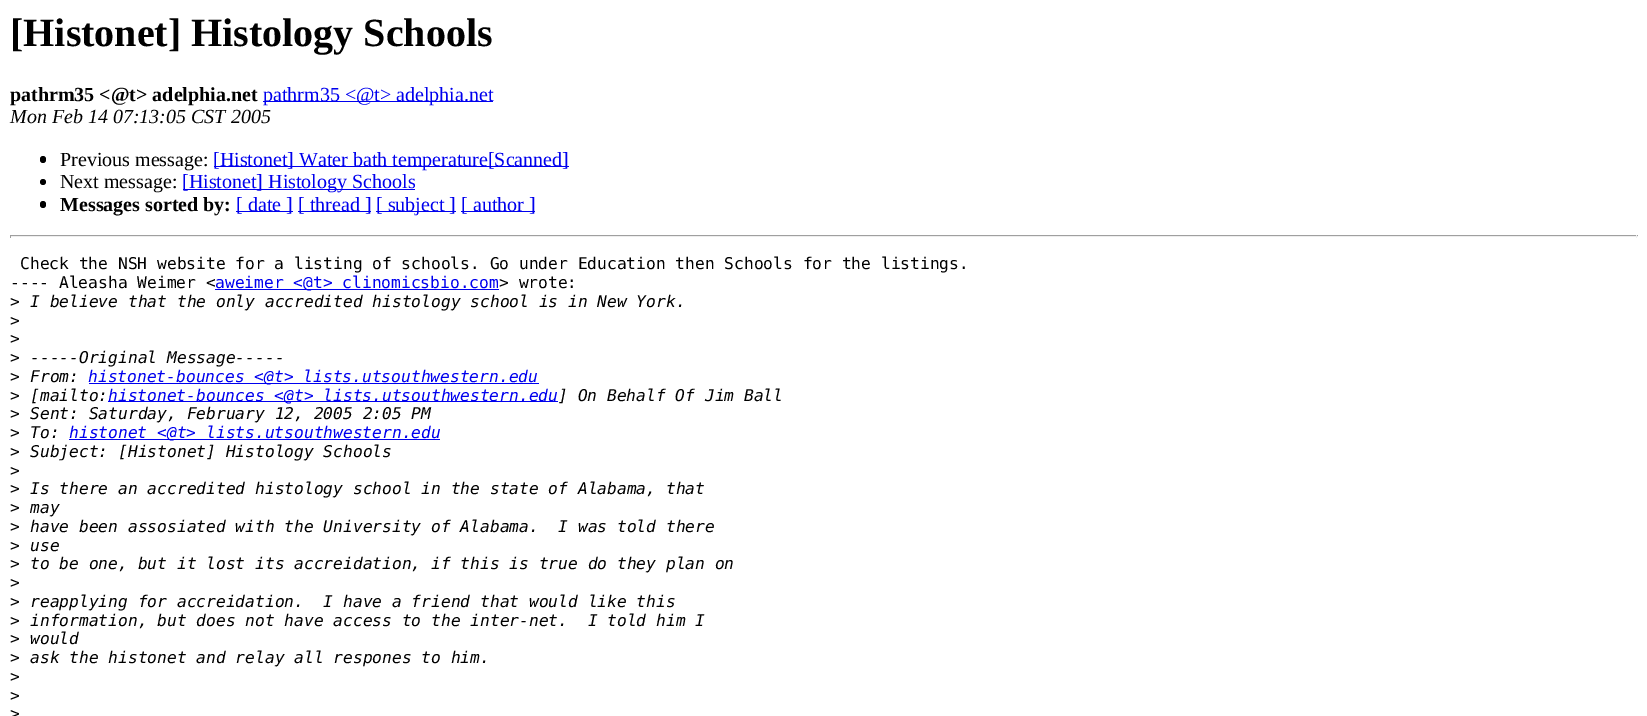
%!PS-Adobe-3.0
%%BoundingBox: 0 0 1647 716
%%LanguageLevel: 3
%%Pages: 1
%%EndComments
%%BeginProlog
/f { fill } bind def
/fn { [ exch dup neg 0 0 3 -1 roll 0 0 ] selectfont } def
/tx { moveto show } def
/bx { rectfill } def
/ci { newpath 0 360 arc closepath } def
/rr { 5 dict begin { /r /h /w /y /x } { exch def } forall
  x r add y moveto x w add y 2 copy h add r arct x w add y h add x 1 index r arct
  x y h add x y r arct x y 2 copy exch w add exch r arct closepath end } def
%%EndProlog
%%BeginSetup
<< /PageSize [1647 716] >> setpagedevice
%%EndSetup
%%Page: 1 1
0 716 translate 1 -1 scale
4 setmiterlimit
1 setgray
0 0 1647 716 bx
/LiberationSerif-Bold 40 fn
0 setgray
([Histonet] Histology Schools) 10 46 tx
/LiberationSerif-Bold 20 fn
(pathrm35 <@t> adelphia.net) 10 101 tx
0 0 0.933 setrgbcolor
263 101 230 1 bx
/LiberationSerif-Regular 20 fn
(pathrm35 <@t> adelphia.net) 263 101 tx
/LiberationSerif-Italic 20 fn
0 setgray
(Mon Feb 14 07:13:05 CST 2005) 10 123 tx
40 156 6 7 3 rr f
/LiberationSerif-Regular 20 fn
(Previous message:) 60 166 tx
0 0 0.933 setrgbcolor
214 166 355 1 bx
([Histonet] Water bath temperature[Scanned]) 213 166 tx
0 setgray
43 182 3 ci f
(Next message:) 60 188 tx
0 0 0.933 setrgbcolor
183 189 232 1 bx
([Histonet] Histology Schools) 182 188 tx
0 setgray
40 201 6 7 3 rr f
/LiberationSerif-Bold 20 fn
(Messages sorted by:) 60 211 tx
0 0 0.933 setrgbcolor
236 211 57 1 bx
/LiberationSerif-Regular 20 fn
([ date ]) 236 211 tx
298 211 73 1 bx
([ thread ]) 298 211 tx
376 211 80 1 bx
([ subject ]) 376 211 tx
461 211 74 1 bx
([ author ]) 461 211 tx
0.624 setgray
10 235 1628 1 bx
0.933 setgray
1636 235 1 3 bx
10 236 1628 1 bx
0.624 setgray
10 235 1 3 bx
/DejaVuSansMono-Regular 16.25 fn
0 setgray
(Check the NSH website for a listing of schools. Go under Education then Schools for the listings.) 20 269 tx
(---- Aleasha Weimer <) 10 288 tx
0 0 0.933 setrgbcolor
215 289 284 1 bx
(aweimer <@t> clinomicsbio.com) 215 288 tx
0 setgray
(> wrote:) 499 288 tx
(>) 10 307 tx
/DejaVuSansMono-Italic 16.25 fn
(I believe that the only accredited histology school is in New York.) 30 307 tx
/DejaVuSansMono-Regular 16.25 fn
(>) 10 326 tx
(>) 10 344 tx
(>) 10 363 tx
/DejaVuSansMono-Italic 16.25 fn
(-----Original Message-----) 30 363 tx
/DejaVuSansMono-Regular 16.25 fn
(>) 10 382 tx
/DejaVuSansMono-Italic 16.25 fn
(From:) 30 382 tx
0 0 0.933 setrgbcolor
89 383 450 1 bx
(histonet-bounces <@t> lists.utsouthwestern.edu) 88 382 tx
/DejaVuSansMono-Regular 16.25 fn
0 setgray
(>) 10 401 tx
/DejaVuSansMono-Italic 16.25 fn
([mailto:) 30 401 tx
0 0 0.933 setrgbcolor
108 401 450 1 bx
(histonet-bounces <@t> lists.utsouthwestern.edu) 108 401 tx
0 setgray
(] On Behalf Of Jim Ball) 558 401 tx
/DejaVuSansMono-Regular 16.25 fn
(>) 10 419 tx
/DejaVuSansMono-Italic 16.25 fn
(Sent: Saturday, February 12, 2005 2:05 PM) 30 419 tx
/DejaVuSansMono-Regular 16.25 fn
(>) 10 438 tx
/DejaVuSansMono-Italic 16.25 fn
(To:) 30 438 tx
0 0 0.933 setrgbcolor
69 439 371 1 bx
(histonet <@t> lists.utsouthwestern.edu) 69 438 tx
/DejaVuSansMono-Regular 16.25 fn
0 setgray
(>) 10 457 tx
/DejaVuSansMono-Italic 16.25 fn
(Subject: [Histonet] Histology Schools) 30 457 tx
/DejaVuSansMono-Regular 16.25 fn
(>) 10 476 tx
(>) 10 494 tx
/DejaVuSansMono-Italic 16.25 fn
(Is there an accredited histology school in the state of Alabama, that) 30 494 tx
/DejaVuSansMono-Regular 16.25 fn
(>) 10 513 tx
/DejaVuSansMono-Italic 16.25 fn
(may) 30 513 tx
/DejaVuSansMono-Regular 16.25 fn
(>) 10 532 tx
/DejaVuSansMono-Italic 16.25 fn
(have been assosiated with the University of Alabama.  I was told there) 30 532 tx
/DejaVuSansMono-Regular 16.25 fn
(>) 10 551 tx
/DejaVuSansMono-Italic 16.25 fn
(use) 30 551 tx
/DejaVuSansMono-Regular 16.25 fn
(>) 10 569 tx
/DejaVuSansMono-Italic 16.25 fn
(to be one, but it lost its accreidation, if this is true do they plan on) 30 569 tx
/DejaVuSansMono-Regular 16.25 fn
(>) 10 588 tx
(>) 10 607 tx
/DejaVuSansMono-Italic 16.25 fn
(reapplying for accreidation.  I have a friend that would like this) 30 607 tx
/DejaVuSansMono-Regular 16.25 fn
(>) 10 626 tx
/DejaVuSansMono-Italic 16.25 fn
(information, but does not have access to the inter-net.  I told him I) 30 626 tx
/DejaVuSansMono-Regular 16.25 fn
(>) 10 644 tx
/DejaVuSansMono-Italic 16.25 fn
(would) 30 644 tx
/DejaVuSansMono-Regular 16.25 fn
(>) 10 663 tx
/DejaVuSansMono-Italic 16.25 fn
(ask the histonet and relay all respones to him.) 30 663 tx
/DejaVuSansMono-Regular 16.25 fn
(>) 10 682 tx
(>) 10 701 tx
(>) 10 719 tx
showpage
%%EOF
